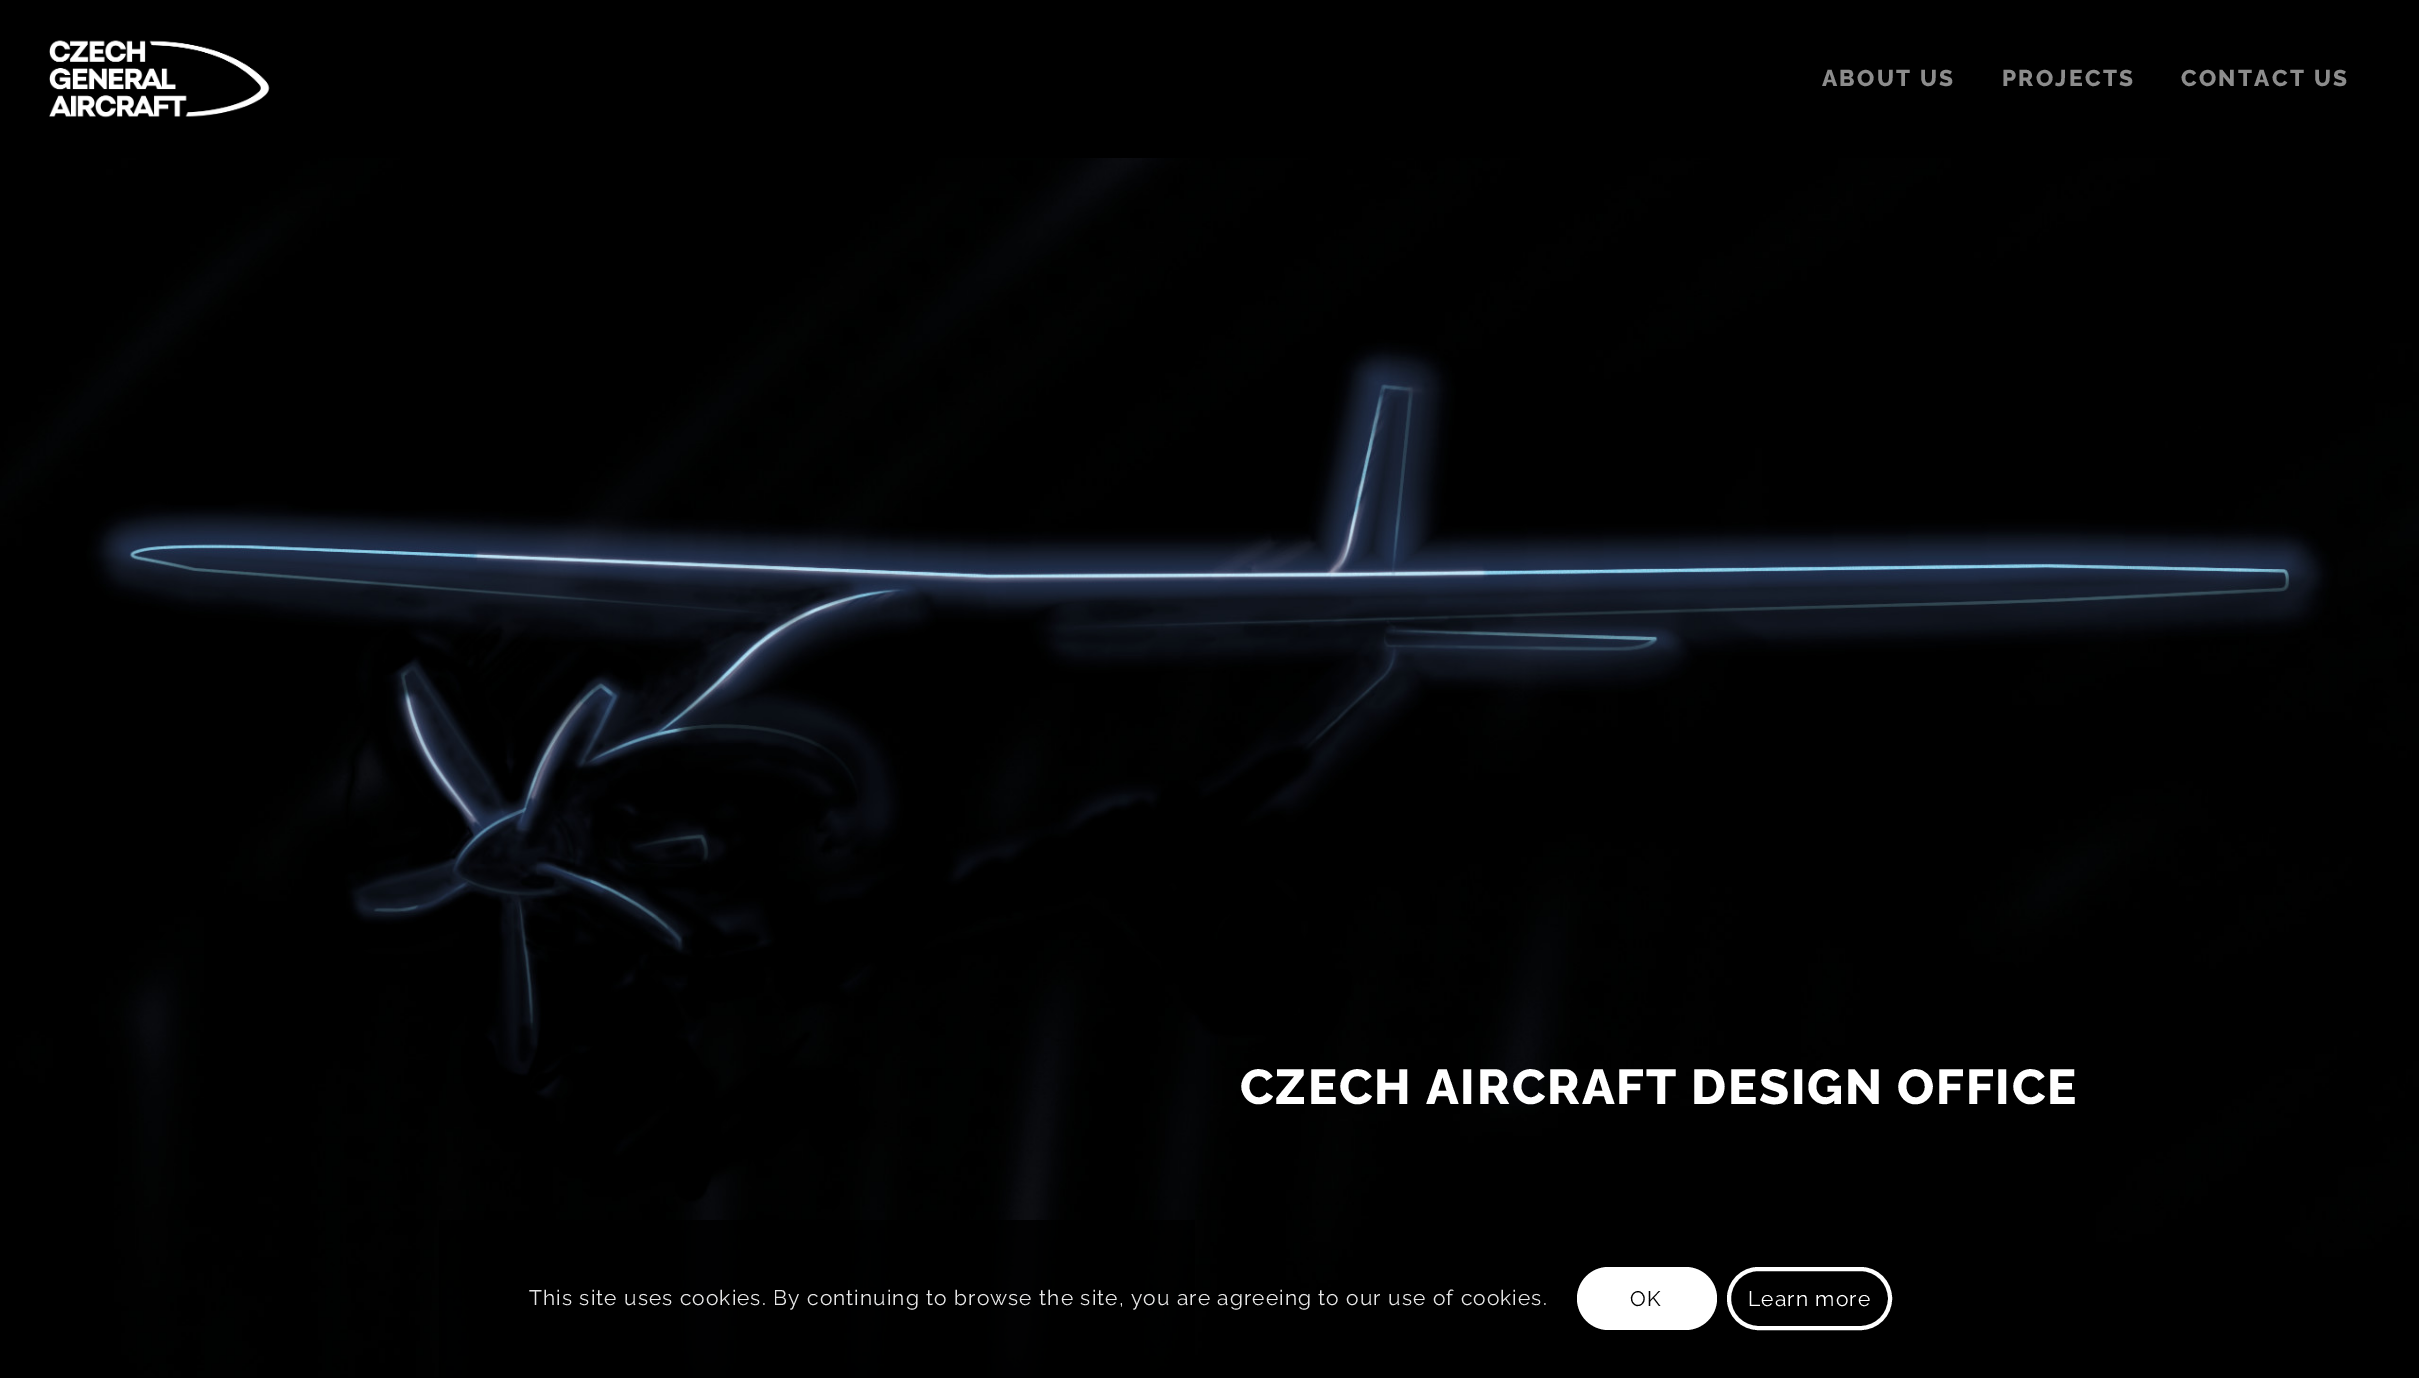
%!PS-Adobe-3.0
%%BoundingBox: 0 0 2419 1378
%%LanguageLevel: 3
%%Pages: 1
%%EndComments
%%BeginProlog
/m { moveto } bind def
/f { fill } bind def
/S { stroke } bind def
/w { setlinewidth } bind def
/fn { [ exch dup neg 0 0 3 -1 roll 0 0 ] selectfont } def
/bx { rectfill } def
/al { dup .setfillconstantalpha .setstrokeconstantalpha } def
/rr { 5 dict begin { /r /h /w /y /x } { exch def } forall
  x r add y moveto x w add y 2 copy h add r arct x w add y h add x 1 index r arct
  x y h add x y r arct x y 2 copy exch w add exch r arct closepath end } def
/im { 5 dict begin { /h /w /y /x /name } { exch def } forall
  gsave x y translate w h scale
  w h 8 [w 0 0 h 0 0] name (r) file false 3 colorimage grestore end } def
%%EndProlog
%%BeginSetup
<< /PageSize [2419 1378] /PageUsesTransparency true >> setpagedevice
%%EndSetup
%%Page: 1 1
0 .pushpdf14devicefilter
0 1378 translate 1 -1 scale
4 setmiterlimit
0 setgray
0 0 2419 1378 bx
(image0.raw) 49 40 221 78 im
/Raleway-ExtraBold 22.75 fn
0.549 setgray
1822 86 m 2.25 0 (ABOUT US) ashow
2002 86 m 2.25 0 (PROJECTS) ashow
2181 86 m 2.25 0 (CONTACT US) ashow
(image1.raw) 0 158 2419 1219 im
/Raleway-ExtraBold 49 fn
1 setgray
1240 1104 m 1.75 0 (CZECH AIRCRAFT DESIGN OFFICE) ashow
0.85 al
0 setgray
439 1220 756 157 bx
/Raleway-Regular 21 fn
1 al
0.902 setgray
529 1305 m 1.05 0 (This site uses cookies. By continuing to browse the site, you are agreeing to our use of cookies.) ashow
1 setgray
1577 1267 140 63 31.5 rr f
0 setgray
1630 1306 m 1.05 0 (OK) ashow
1 setgray
4 w
1729 1269 161 59 29.5 rr S
1748 1306 m 1.05 0 (Learn more) ashow
.poppdf14devicefilter showpage
%%EOF
